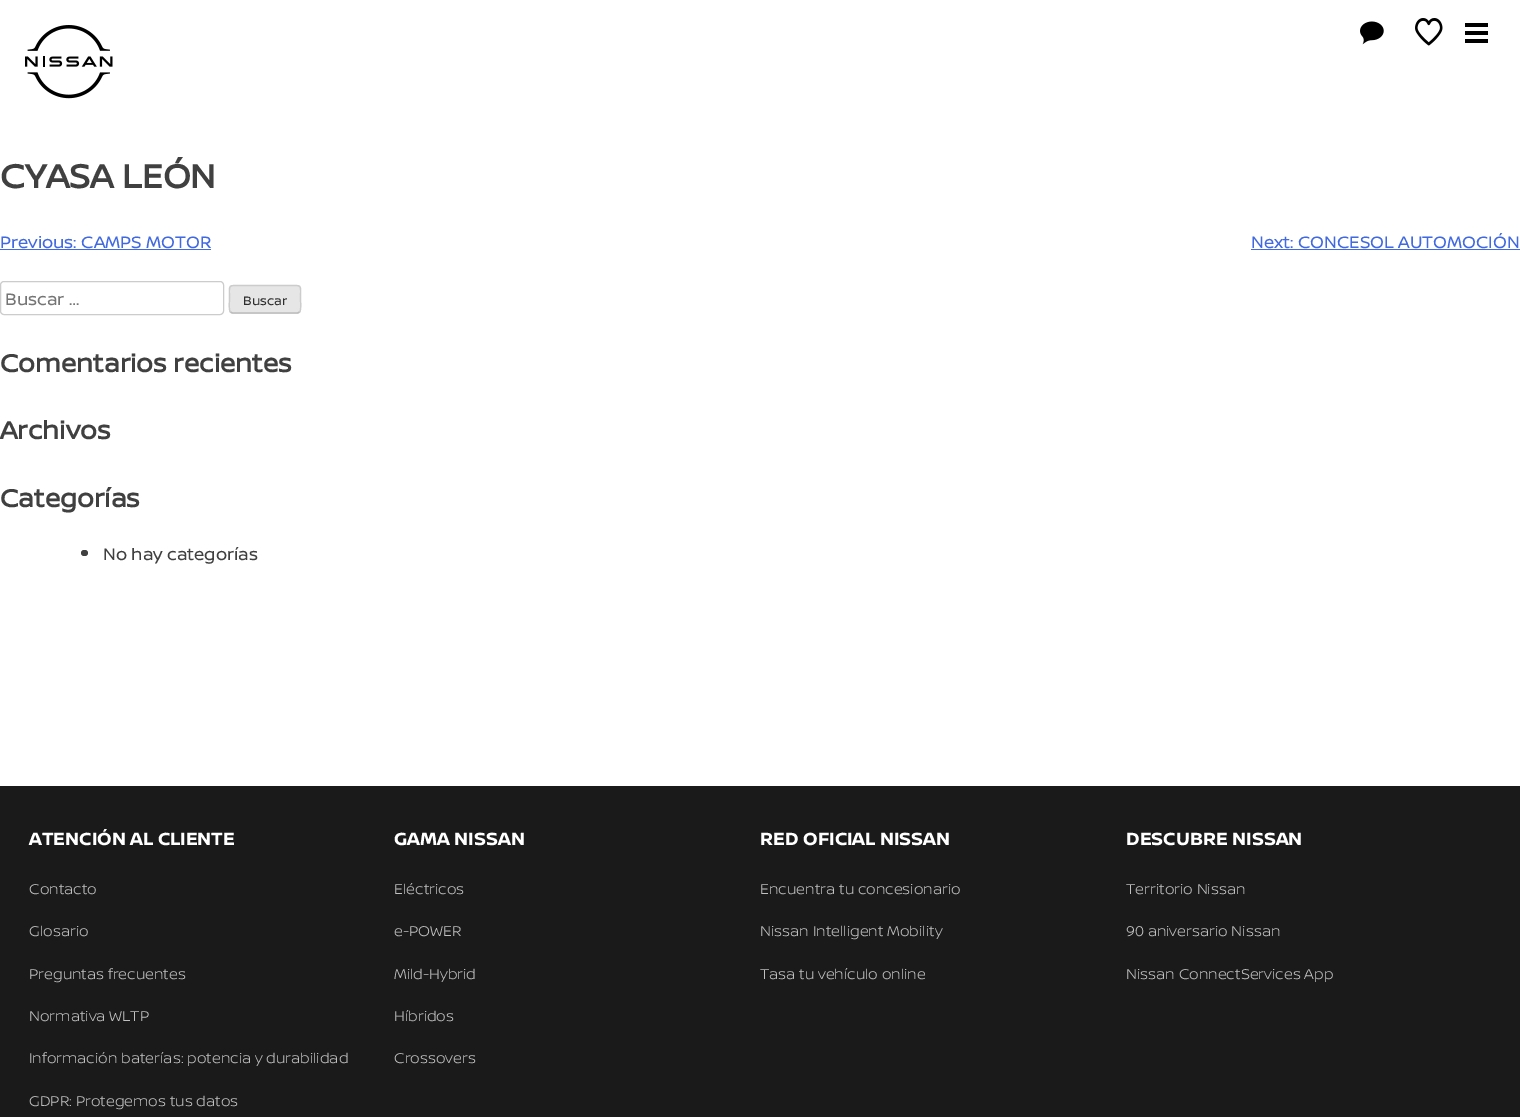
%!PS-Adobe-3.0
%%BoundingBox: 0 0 1520 1117
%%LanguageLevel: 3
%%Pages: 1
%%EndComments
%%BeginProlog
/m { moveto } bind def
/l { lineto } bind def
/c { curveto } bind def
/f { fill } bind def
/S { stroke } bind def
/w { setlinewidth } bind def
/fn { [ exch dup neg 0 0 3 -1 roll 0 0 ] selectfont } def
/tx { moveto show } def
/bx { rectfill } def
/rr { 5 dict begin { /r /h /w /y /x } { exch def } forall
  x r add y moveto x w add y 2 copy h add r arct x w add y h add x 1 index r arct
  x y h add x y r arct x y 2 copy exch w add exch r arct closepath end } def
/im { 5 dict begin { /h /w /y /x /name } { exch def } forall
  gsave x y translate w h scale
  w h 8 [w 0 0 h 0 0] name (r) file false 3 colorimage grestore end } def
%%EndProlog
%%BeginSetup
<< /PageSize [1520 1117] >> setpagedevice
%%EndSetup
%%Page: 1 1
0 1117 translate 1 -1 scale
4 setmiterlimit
1 setgray
0 0 1520 1117 bx
(image0.raw) 25 25 88 74 im
(image1.raw) 1360 21 24 24 im
(image2.raw) 1415 18 28 28 im
0 setgray
1465 23 23 4 bx
1465 31 23 4 bx
1465 39 23 4 bx
/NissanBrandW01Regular-Bold 35 fn
0.251 setgray
(CYASA LEÓN) 0 188 tx
/NissanBrandW01Regular-Regular 17.5 fn
0.255 0.412 0.882 setrgbcolor
(Previous: CAMPS MOTOR) 0 248 tx
0 249 211 1 bx
(Next: CONCESOL AUTOMOCIÓN) 1251 248 tx
1251 249 269 1 bx
0.8 setgray
0.5 281.5 223 33 3.5 rr S
0.459 setgray
(Buscar …) 5 305 tx
0.902 setgray
229 285 72 29 4 rr f
0.733 setgray
1.2 w
299.5 312 m 297.5 313 l 232.5 313 l 230.5 312 l S
0.8 setgray
230.5 312 m 228.5 310 229.5 302 229.5 299.5 c 229.5 283.5 227 285.5 243.5 285.5 c 286.5 285.5 l 303 285.5 300.5 283.5 300.5 299.5 c 300.5 302 301.5 310 299.5 312 c S
/NissanBrandW01Regular-Regular 13 fn
0.18 setgray
(Buscar) 243 305 tx
/NissanBrandW01Regular-Bold 26.25 fn
0.251 setgray
(Comentarios recientes) 0 372 tx
(Archivos) 0 439 tx
(Categorías) 0 507 tx
81 550 7 6 3 rr f
/NissanBrandW01Regular-Regular 17.5 fn
(No hay categorías) 103 560 tx
0.102 setgray
0 786 1520 331 bx
/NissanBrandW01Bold-Bold 18.75 fn
1 setgray
(ATENCIÓN AL CLIENTE) 29 845 tx
/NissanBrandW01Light-Light 15 fn
0.757 setgray
(Contacto) 29 894 tx
(Glosario) 29 936 tx
(Preguntas frecuentes) 29 979 tx
(Normativa WLTP) 29 1021 tx
(Información baterías: potencia y durabilidad) 29 1063 tx
(GDPR: Protegemos tus datos) 29 1106 tx
/NissanBrandW01Bold-Bold 18.75 fn
1 setgray
(GAMA NISSAN) 394 845 tx
/NissanBrandW01Light-Light 15 fn
0.757 setgray
(Eléctricos) 394 894 tx
(e-POWER) 394 936 tx
(Mild-Hybrid) 394 979 tx
(Híbridos) 394 1021 tx
(Crossovers) 394 1063 tx
/NissanBrandW01Bold-Bold 18.75 fn
1 setgray
(RED OFICIAL NISSAN) 760 845 tx
/NissanBrandW01Light-Light 15 fn
0.757 setgray
(Encuentra tu concesionario) 760 894 tx
(Nissan Intelligent Mobility) 760 936 tx
(Tasa tu vehículo online) 760 979 tx
/NissanBrandW01Bold-Bold 18.75 fn
1 setgray
(DESCUBRE NISSAN) 1126 845 tx
/NissanBrandW01Light-Light 15 fn
0.757 setgray
(Territorio Nissan) 1126 894 tx
(90 aniversario Nissan) 1126 936 tx
(Nissan ConnectServices App) 1126 979 tx
showpage
%%EOF
